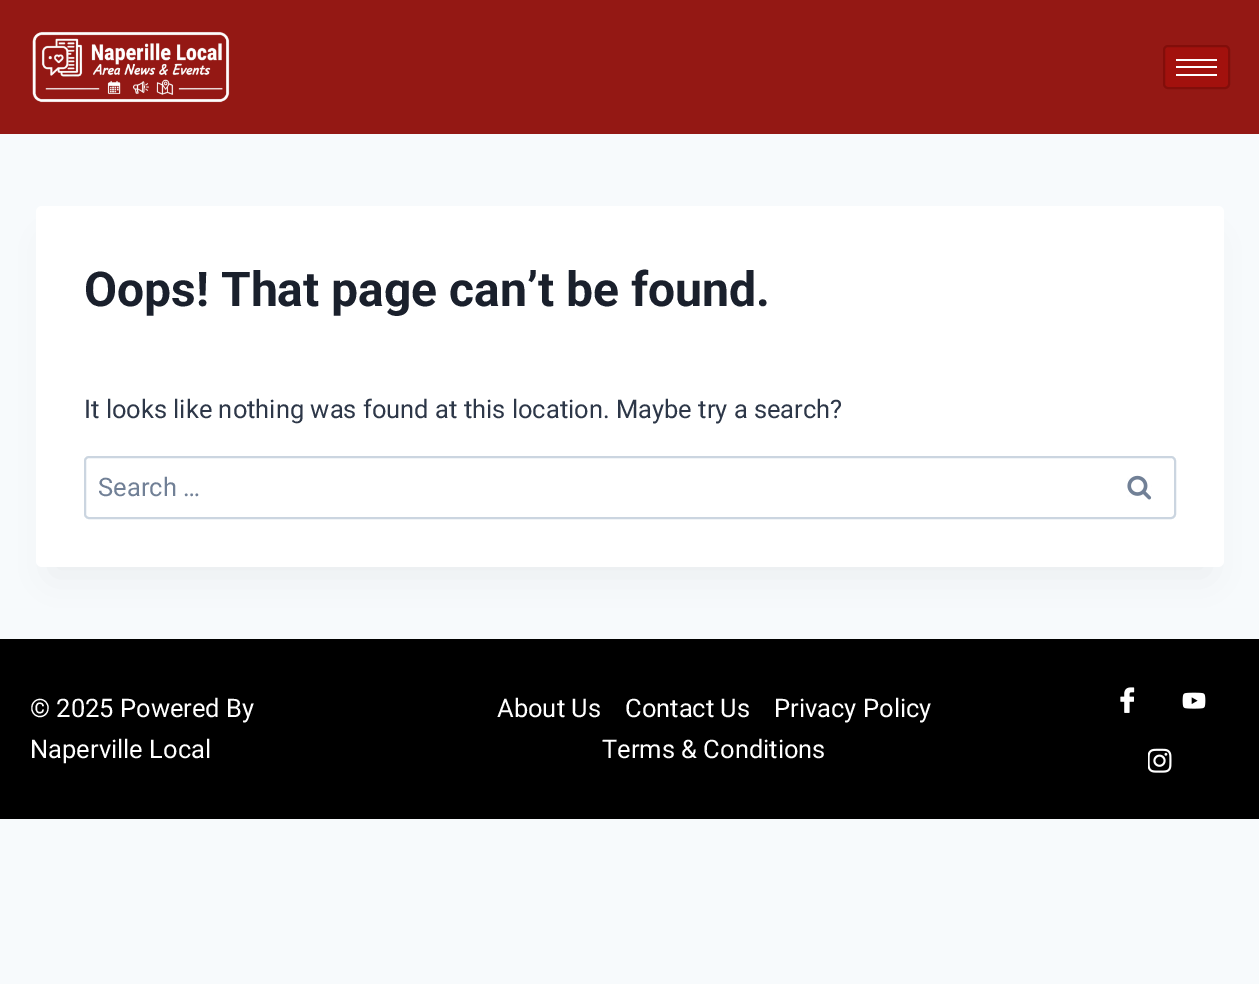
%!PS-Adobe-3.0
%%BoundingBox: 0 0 1259 984
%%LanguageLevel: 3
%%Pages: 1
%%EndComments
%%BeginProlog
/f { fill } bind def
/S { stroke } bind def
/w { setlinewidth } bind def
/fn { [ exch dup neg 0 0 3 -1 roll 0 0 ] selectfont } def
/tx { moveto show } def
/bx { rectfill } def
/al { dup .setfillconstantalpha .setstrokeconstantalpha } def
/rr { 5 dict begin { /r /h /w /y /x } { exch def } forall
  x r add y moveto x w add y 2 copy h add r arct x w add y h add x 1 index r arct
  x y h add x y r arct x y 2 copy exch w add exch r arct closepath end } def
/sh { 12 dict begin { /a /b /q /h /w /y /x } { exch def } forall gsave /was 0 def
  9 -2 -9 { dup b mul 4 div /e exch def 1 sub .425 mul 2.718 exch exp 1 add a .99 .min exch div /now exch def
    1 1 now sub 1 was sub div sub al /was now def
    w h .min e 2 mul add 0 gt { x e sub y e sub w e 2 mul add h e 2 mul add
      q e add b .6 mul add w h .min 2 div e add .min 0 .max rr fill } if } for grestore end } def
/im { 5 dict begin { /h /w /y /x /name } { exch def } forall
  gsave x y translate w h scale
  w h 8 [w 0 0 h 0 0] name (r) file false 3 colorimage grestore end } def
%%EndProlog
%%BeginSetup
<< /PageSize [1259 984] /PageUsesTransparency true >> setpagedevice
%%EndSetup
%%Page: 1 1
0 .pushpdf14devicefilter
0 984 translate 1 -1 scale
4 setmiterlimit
0.969 0.98 0.988 setrgbcolor
0 0 1259 984 bx
0.58 0.094 0.078 setrgbcolor
0 0 1259 134 bx
(image0.raw) 32 31 198 72 im
0.635 0.067 0.051 setrgbcolor
1163 45 67 44 5 rr f
0.2 al
0 setgray
2 w
1164 46 65 42 4 rr S
1 al
1 setgray
1176 59 41 2 bx
1176 66 41 2 bx
1176 74 41 2 bx
0 setgray
51 243 1158 332 0 19 0.05 sh
1 setgray
36 206 1188 361 6 rr f
/Roboto-Bold 48 fn
0.102 0.125 0.173 setrgbcolor
(Oops! That page can’t be found.) 84 306 tx
/Roboto-Regular 25.5 fn
0.176 0.216 0.282 setrgbcolor
(It looks like nothing was found at this location. Maybe try a search?) 84 418 tx
0.796 0.835 0.878 setrgbcolor
85 457 1090 61 4 rr S
0.443 0.502 0.588 setrgbcolor
(Search …) 98 496 tx
(image1.raw) 1127 475 25 25 im
0 setgray
0 639 1259 180 bx
1 setgray
(© 2025 Powered By) 30 717 tx
(Naperville Local) 30 758 tx
(About Us) 497 717 tx
(Contact Us) 625 717 tx
(Privacy Policy) 774 717 tx
(Terms & Conditions) 602 758 tx
(image2.raw) 1120 687 15 26 im
(image3.raw) 1182 692 24 17 im
(image4.raw) 1148 748 24 25 im
.poppdf14devicefilter showpage
%%EOF
